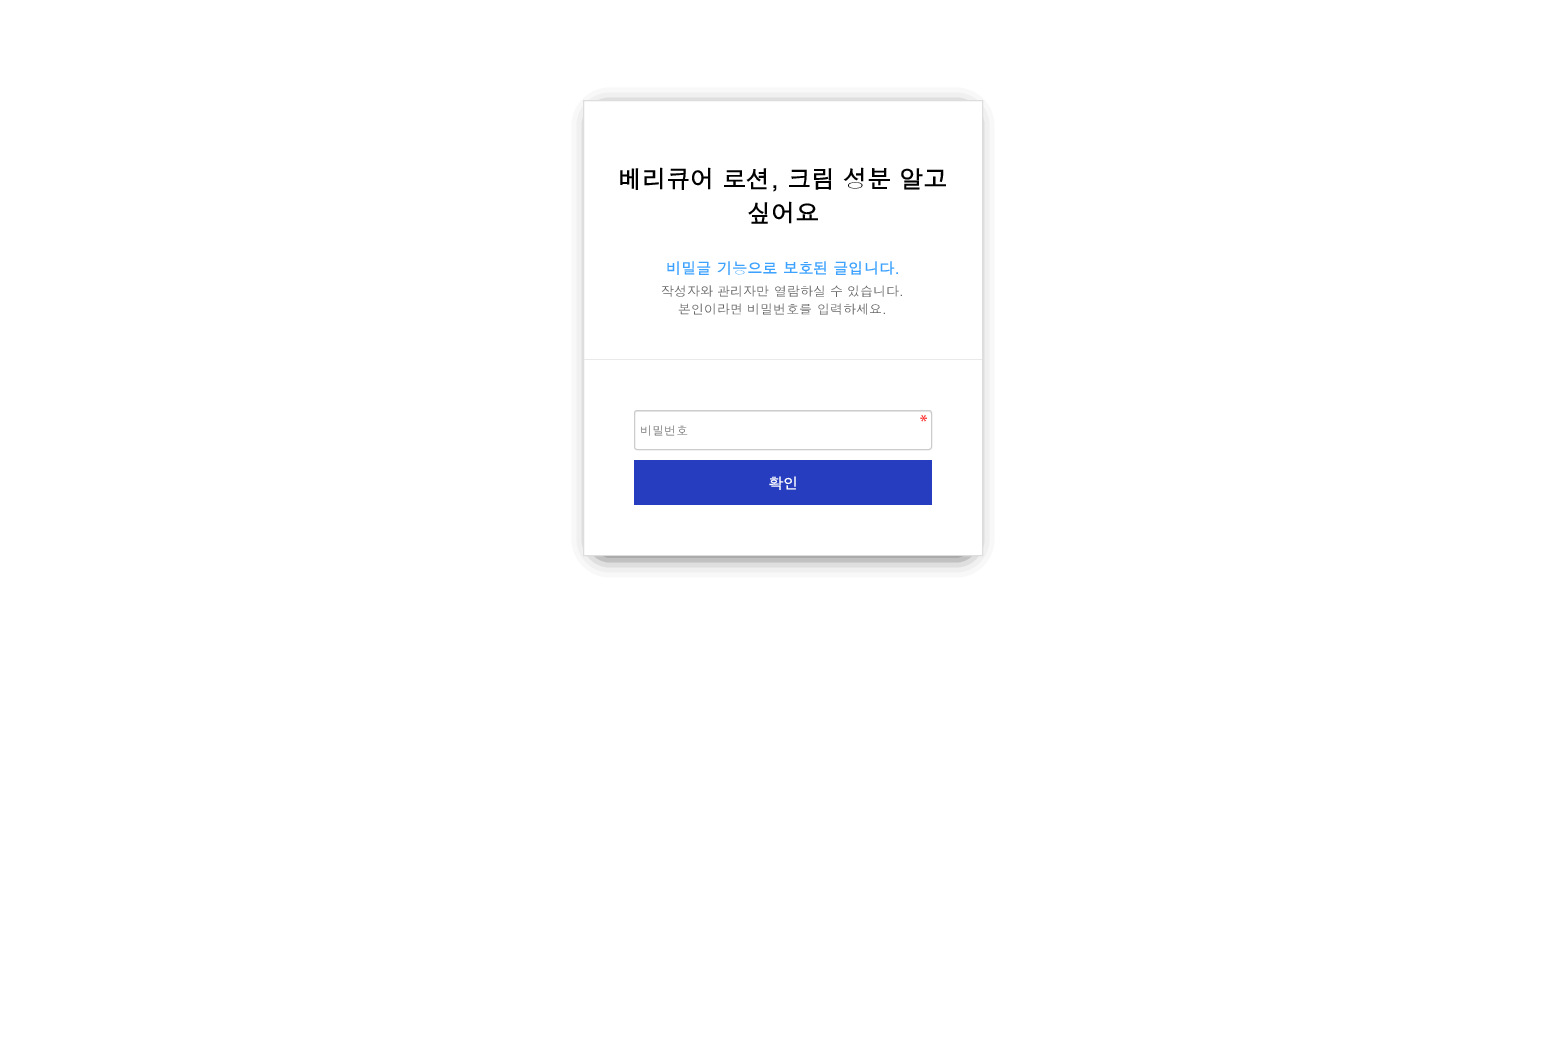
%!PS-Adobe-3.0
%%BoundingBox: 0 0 1565 1050
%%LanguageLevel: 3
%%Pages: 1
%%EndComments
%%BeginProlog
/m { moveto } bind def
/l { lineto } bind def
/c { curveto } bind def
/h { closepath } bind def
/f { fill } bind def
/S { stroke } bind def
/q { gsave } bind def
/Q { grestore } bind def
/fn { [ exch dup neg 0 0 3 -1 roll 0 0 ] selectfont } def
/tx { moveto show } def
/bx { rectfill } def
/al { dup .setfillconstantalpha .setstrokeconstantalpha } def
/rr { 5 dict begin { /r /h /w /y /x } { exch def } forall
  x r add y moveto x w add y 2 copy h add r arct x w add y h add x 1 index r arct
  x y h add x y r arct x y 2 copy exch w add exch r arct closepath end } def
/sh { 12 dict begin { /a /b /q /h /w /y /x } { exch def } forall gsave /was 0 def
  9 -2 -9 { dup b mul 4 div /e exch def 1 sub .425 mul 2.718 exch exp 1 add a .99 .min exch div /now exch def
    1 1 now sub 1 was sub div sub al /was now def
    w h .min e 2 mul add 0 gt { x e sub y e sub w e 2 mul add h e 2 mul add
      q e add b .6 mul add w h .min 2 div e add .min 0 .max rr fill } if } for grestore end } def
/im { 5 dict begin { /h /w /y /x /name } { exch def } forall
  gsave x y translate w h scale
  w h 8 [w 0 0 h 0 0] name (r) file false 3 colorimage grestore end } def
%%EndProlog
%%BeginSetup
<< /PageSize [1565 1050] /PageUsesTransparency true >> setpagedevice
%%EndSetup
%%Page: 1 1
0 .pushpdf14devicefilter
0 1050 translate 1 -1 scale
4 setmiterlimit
1 setgray
0 0 1565 1050 bx
0 setgray
594 110 378 445 10 10 0.8 sh
1 setgray
583.5 100.5 m 982.5 100.5 l 982.5 555.5 l 583.5 555.5 l h q f Q
0.867 setgray
S
/Dotum-Bold 24 fn
0 setgray
(베리큐어 로션, 크림 성분 알고) 618 188 tx
(싶어요) 747 222 tx
0.914 setgray
584 359 398 1 bx
/Dotum-Bold 15.2 fn
0.235 0.631 1 setrgbcolor
(비밀글 기능으로 보호된 글입니다.) 666 274 tx
/Dotum-Regular 13 fn
0.396 setgray
(작성자와 관리자만 열람하실 수 있습니다.) 661 296 tx
(본인이라면 비밀번호를 입력하세요.) 678 314 tx
(image0.raw) 920 415 7 7 im
0.925 setgray
637 412 m 929 412 l 930 412 931 413 931 414 c 931 413 931 411 929 411 c 636 411 l 635 414 l 635 413 636 412 637 412 c h f
0.8 setgray
634.5 410.5 297 39 2.5 rr S
/Dotum-Regular 12 fn
0.459 setgray
(비밀번호) 640 435 tx
0.145 0.239 0.745 setrgbcolor
634 460 298 45 bx
/Dotum-Bold 15 fn
1 setgray
(확인) 768 489 tx
.poppdf14devicefilter showpage
%%EOF
